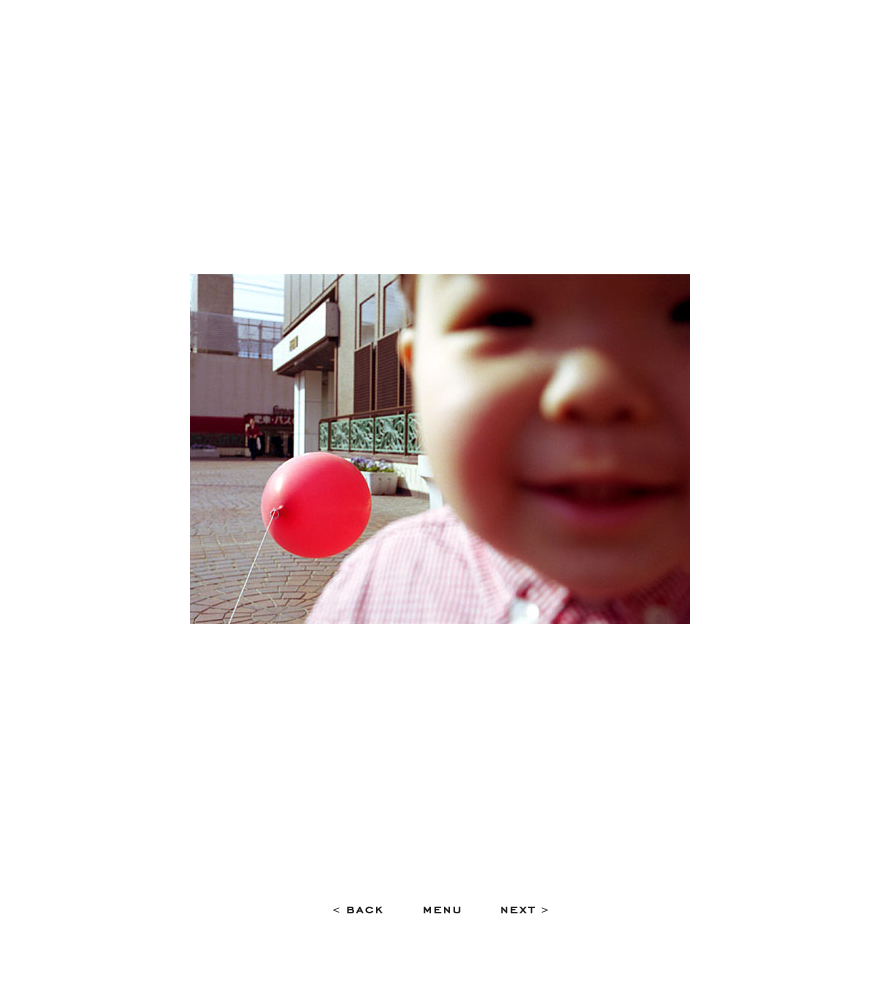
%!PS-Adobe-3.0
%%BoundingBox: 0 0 880 996
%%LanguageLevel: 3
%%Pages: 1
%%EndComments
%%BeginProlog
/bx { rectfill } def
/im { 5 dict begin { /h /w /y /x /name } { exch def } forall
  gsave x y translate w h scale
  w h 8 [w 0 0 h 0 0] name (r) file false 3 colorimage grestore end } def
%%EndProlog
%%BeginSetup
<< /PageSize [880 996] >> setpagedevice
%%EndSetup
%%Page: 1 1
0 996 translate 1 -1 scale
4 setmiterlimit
1 setgray
0 0 880 996 bx
(image0.raw) 190 274 500 350 im
(image1.raw) 333 906 50 8 im
(image2.raw) 423 906 38 8 im
(image3.raw) 501 906 47 8 im
showpage
%%EOF
